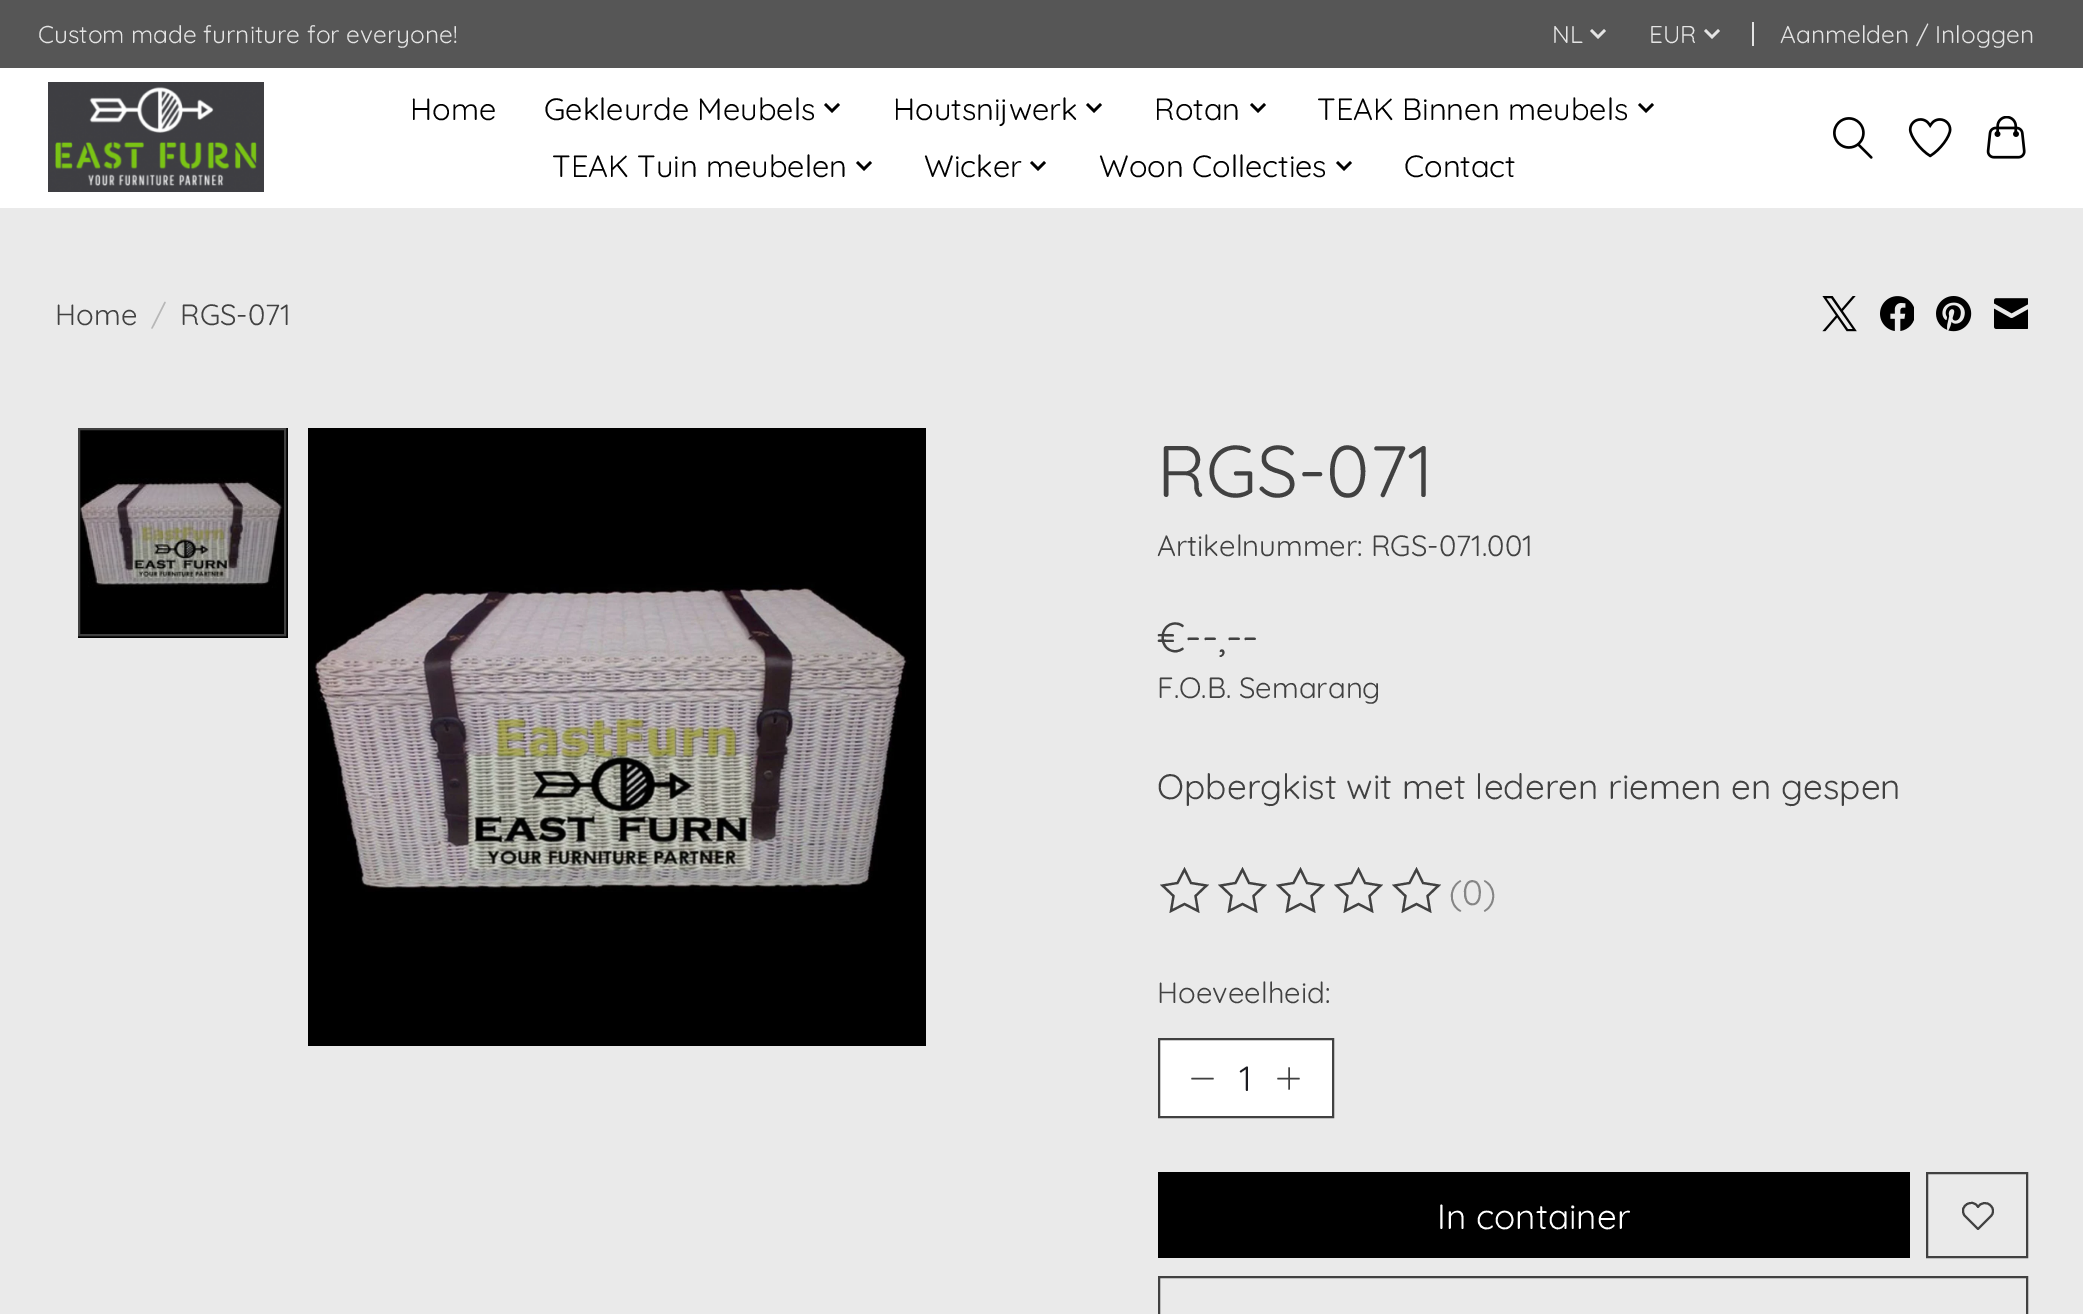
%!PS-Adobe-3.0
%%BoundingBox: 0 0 2083 1314
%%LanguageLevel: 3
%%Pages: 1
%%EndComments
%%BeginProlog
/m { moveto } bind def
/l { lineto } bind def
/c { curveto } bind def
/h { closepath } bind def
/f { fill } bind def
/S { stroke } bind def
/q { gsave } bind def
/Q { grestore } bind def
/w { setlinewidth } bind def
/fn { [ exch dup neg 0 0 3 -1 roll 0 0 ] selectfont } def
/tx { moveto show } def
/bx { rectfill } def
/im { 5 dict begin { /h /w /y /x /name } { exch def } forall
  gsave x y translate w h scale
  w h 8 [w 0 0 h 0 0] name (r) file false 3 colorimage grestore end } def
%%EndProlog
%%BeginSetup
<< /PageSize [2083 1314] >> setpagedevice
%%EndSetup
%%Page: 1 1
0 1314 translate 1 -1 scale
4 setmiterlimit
0.918 setgray
0 0 2083 1314 bx
1 setgray
0 68 2083 140 bx
0.337 setgray
0 0 2083 68 bx
/Quicksand-Regular 24.4 fn
0.894 setgray
(Custom made furniture for everyone!) 38 43 tx
(NL) 1552 43 tx
(image0.raw) 1590 29 16 10 im
(EUR) 1649 43 tx
(image0.raw) 1704 29 16 10 im
1752 22 2 24 bx
(Aanmelden / Inloggen) 1780 43 tx
(image1.raw) 48 82 216 110 im
/Quicksand-Regular 30.75 fn
0 setgray
(Home) 410 120 tx
(Gekleurde Meubels) 544 120 tx
(image2.raw) 824 103 16 10 im
(Houtsnijwerk) 893 120 tx
(image2.raw) 1086 103 16 10 im
(Rotan) 1154 120 tx
(image2.raw) 1250 103 16 10 im
(TEAK Binnen meubels) 1317 120 tx
(image2.raw) 1638 103 16 10 im
(TEAK Tuin meubelen) 552 177 tx
(image2.raw) 856 161 16 10 im
(Wicker) 924 177 tx
(image2.raw) 1030 161 16 10 im
(Woon Collecties) 1099 177 tx
(image2.raw) 1336 161 16 10 im
(Contact) 1404 177 tx
(image3.raw) 1833 117 40 42 im
(image4.raw) 1908 118 44 40 im
(image5.raw) 1986 116 40 43 im
/Quicksand-Regular 29.3 fn
0.255 setgray
(Home) 55 325 tx
0.718 setgray
(/) 151 325 tx
0.255 setgray
(RGS-071) 180 325 tx
(image6.raw) 1822 296 35 36 im
(image7.raw) 1880 296 34 35 im
(image8.raw) 1936 296 36 36 im
(image9.raw) 1994 298 34 31 im
(image10.raw) 78 428 210 210 im
2 w
79 429 206 206 rectstroke
(image11.raw) 308 428 618 618 im
/Quicksand-Regular 73 fn
(RGS-071) 1157 497 tx
/Quicksand-Regular 29.3 fn
(Artikelnummer: RGS-071.001) 1157 556 tx
/Quicksand-Regular 42 fn
(€--,--) 1157 652 tx
/Quicksand-Regular 29.3 fn
(F.O.B. Semarang) 1157 698 tx
/Quicksand-Regular 35.2 fn
(Opbergkist wit met lederen riemen en gespen) 1157 799 tx
2.2 w
1184.5 869.5 m 1191 883 l 1206.5 885.5 l 1195.5 896 l 1198 911 l 1184.5 904 l 1171 911 l 1173.5 896 l 1162.5 885.5 l 1177.5 883 l h S
1242.5 869.5 m 1249 883 l 1264.5 885.5 l 1253.5 896 l 1256 911 l 1242.5 904 l 1229 911 l 1231.5 896 l 1220.5 885.5 l 1235.5 883 l h S
1300.5 869.5 m 1307 883 l 1322.5 885.5 l 1311.5 896 l 1314 911 l 1300.5 904 l 1287 911 l 1289.5 896 l 1278.5 885.5 l 1293.5 883 l h S
1358.5 869.5 m 1365 883 l 1380.5 885.5 l 1369.5 896 l 1372 911 l 1358.5 904 l 1345 911 l 1347.5 896 l 1336.5 885.5 l 1351.5 883 l h S
1416.5 869.5 m 1423 883 l 1438.5 885.5 l 1427.5 896 l 1430 911 l 1416.5 904 l 1403 911 l 1405.5 896 l 1394.5 885.5 l 1409.5 883 l h S
0.522 setgray
(\(0\)) 1449 905 tx
/Quicksand-Regular 29.3 fn
0.255 setgray
(Hoeveelheid:) 1157 1003 tx
1 setgray
1159 1039 m 1333 1039 l 1333 1117 l 1159 1117 l h q f Q
0.255 setgray
2 w
S
1.5 w
1 setlinecap
1 setlinejoin
1192 1078.5 m 1213 1078.5 l S
/Quicksand-Regular 35.2 fn
0.11 0.11 0.129 setrgbcolor
(1) 1239 1091 tx
0.255 setgray
1289 1068 m 1289 1089 l 1278 1078.5 m 1299 1078.5 l S
0 setgray
1158 1172 752 86 bx
1 setgray
(In container) 1437 1229 tx
0.255 setgray
2 w
0 setlinecap
0 setlinejoin
1927 1173 100 84 rectstroke
q
1962 1200 32 32 rectclip
1 setlinecap
1 setlinejoin
1990.5 1205.5 m 1987 1201.5 1980.5 1202.5 1978 1207 c 1973 1197.5 1958 1206 1964.5 1215.5 c 1978 1229 l 1990.5 1216.5 l 1994 1213.5 1994 1208.5 1990.5 1205.5 c h S
Q
1159 1277 868 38 rectstroke
showpage
%%EOF
